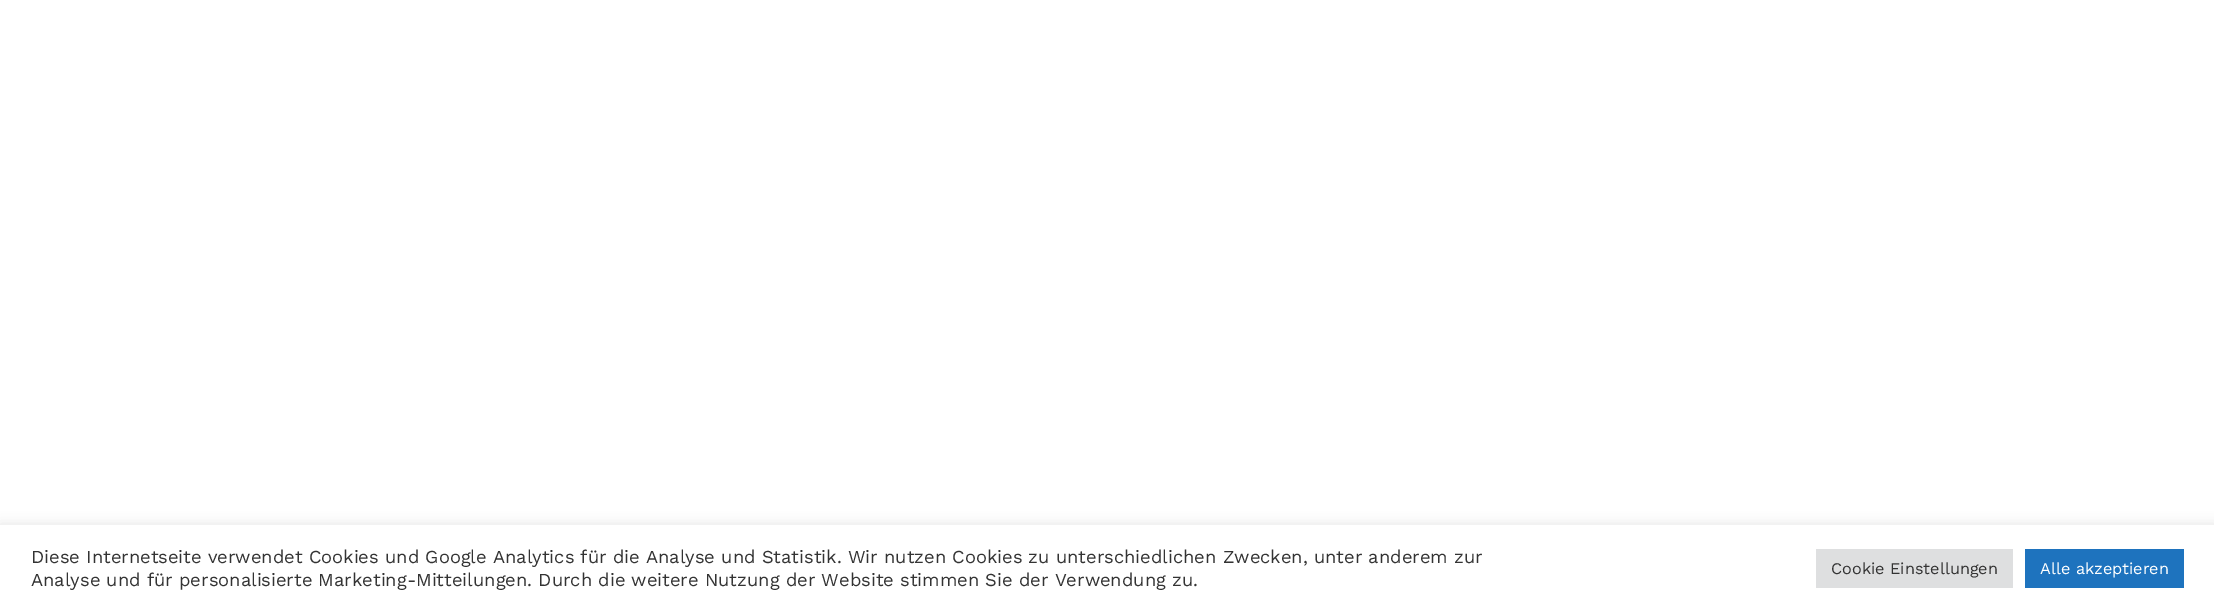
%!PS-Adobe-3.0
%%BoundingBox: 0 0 2214 611
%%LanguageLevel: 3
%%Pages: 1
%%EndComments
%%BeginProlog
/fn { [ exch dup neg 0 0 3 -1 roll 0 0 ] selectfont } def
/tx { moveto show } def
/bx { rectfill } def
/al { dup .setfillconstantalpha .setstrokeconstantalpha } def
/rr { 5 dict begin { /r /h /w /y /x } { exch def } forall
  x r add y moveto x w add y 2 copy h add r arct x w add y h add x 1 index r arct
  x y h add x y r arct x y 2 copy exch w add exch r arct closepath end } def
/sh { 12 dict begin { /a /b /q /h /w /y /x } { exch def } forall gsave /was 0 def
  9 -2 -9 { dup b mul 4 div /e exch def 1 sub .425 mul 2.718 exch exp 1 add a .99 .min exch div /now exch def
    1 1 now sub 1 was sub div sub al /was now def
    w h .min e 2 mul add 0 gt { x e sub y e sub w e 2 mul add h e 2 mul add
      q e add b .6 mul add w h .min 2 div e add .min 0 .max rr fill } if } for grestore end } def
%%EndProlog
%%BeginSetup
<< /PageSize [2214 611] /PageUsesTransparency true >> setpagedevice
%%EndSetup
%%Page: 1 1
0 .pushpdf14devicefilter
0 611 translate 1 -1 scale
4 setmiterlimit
1 setgray
0 0 2214 611 bx
0.675 0.671 0.671 setrgbcolor
0 524 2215 86 0 6 0.3 sh
1 setgray
0 525 2214 86 bx
/WorkSans-Regular 18.33 fn
0.2 setgray
(Diese Internetseite verwendet Cookies und Google Analytics für die Analyse und Statistik. Wir nutzen Cookies zu unterschiedlichen Zwecken, unter anderem zur) 31 563 tx
(Analyse und für personalisierte Marketing-Mitteilungen. Durch die weitere Nutzung der Website stimmen Sie der Verwendung zu.) 31 586 tx
0.871 0.875 0.878 setrgbcolor
1816 549 197 39 bx
/WorkSans-Regular 16.25 fn
0.2 setgray
(Cookie Einstellungen) 1831 574 tx
0.118 0.451 0.745 setrgbcolor
2025 549 159 39 bx
1 setgray
(Alle akzeptieren) 2040 574 tx
.poppdf14devicefilter showpage
%%EOF
